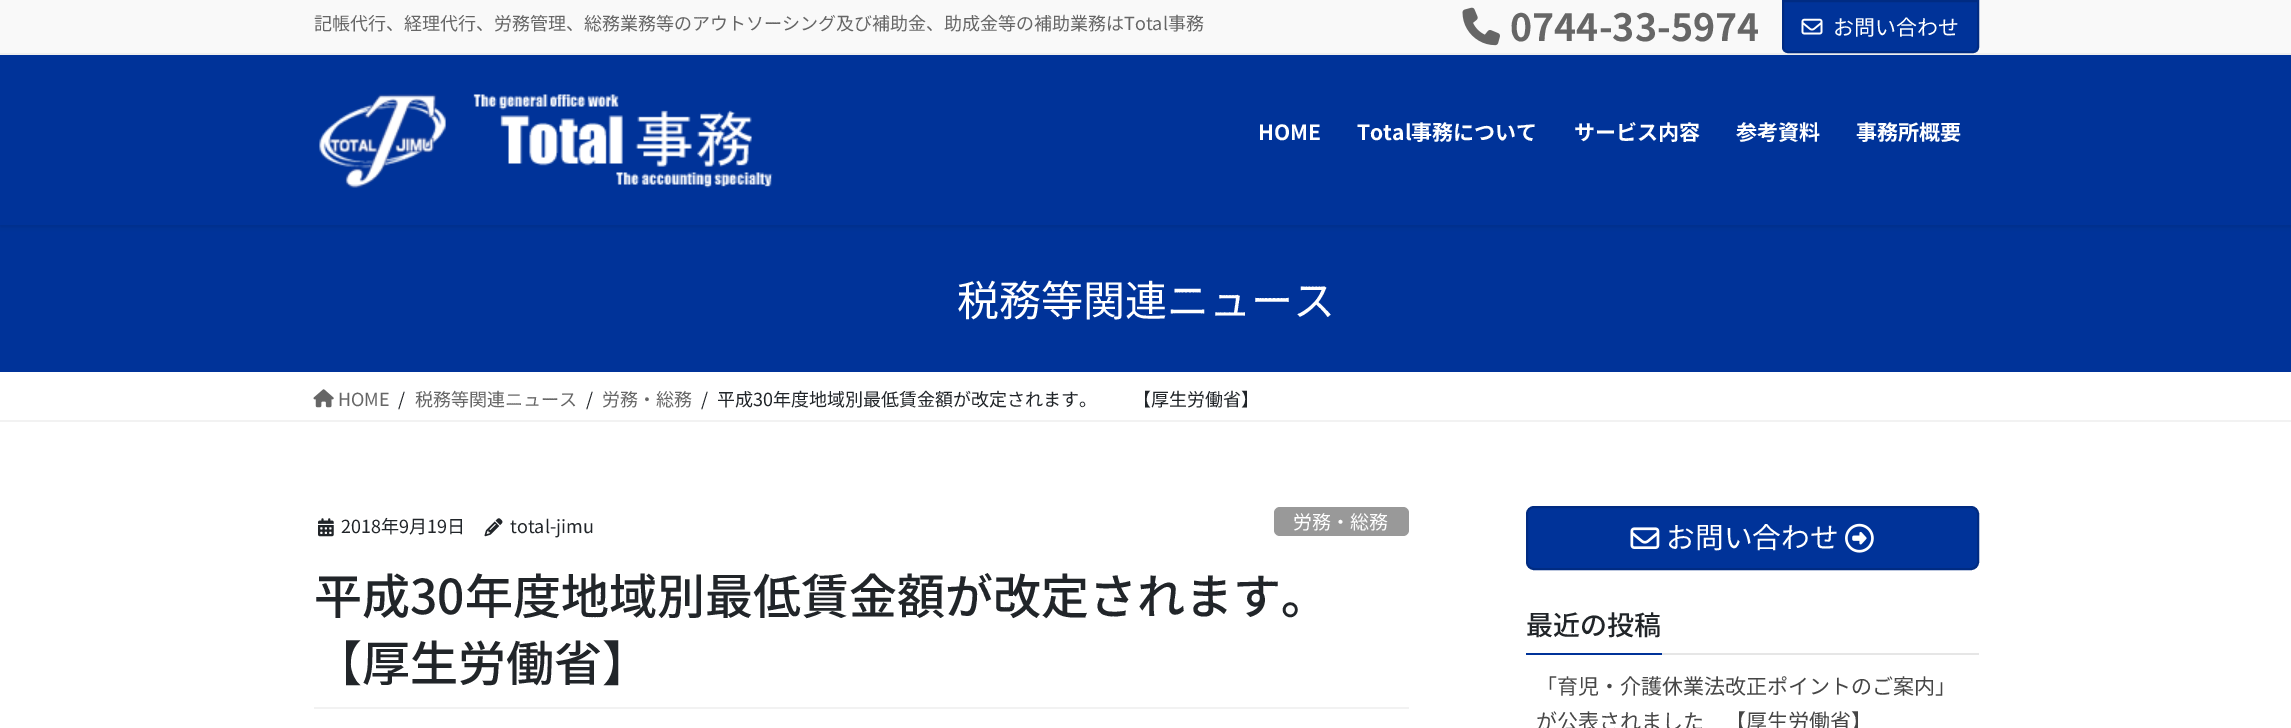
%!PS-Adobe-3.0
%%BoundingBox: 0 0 2291 728
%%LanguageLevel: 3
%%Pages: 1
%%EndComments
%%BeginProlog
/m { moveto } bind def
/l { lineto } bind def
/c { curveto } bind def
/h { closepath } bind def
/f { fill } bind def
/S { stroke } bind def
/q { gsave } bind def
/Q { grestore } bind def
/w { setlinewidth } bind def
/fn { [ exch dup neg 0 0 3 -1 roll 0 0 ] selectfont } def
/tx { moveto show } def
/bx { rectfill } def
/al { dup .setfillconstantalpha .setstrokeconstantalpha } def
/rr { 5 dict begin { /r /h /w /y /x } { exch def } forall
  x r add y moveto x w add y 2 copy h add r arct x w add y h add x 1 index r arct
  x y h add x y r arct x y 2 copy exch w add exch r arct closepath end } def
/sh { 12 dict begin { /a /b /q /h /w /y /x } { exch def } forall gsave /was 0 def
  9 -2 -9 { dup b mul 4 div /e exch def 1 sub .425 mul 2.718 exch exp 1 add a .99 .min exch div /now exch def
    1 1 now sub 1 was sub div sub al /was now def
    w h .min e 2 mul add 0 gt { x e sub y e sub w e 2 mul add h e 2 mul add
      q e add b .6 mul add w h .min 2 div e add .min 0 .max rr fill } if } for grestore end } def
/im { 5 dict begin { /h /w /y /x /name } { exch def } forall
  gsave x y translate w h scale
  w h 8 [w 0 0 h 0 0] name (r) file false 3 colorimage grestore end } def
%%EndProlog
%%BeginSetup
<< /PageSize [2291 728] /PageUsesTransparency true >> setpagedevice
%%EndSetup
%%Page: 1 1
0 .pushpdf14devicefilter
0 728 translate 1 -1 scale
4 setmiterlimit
1 setgray
0 0 2291 728 bx
0 0.2 0.6 setrgbcolor
0 225 2291 147 bx
0 setgray
0 -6 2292 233 0 2 0.1 sh
0 0.2 0.6 setrgbcolor
0 55 2291 170 bx
0.976 setgray
0 0 2291 53 bx
0.937 setgray
0 53 2291 2 bx
/NotoSansJP-Regular 18 fn
0.4 setgray
(記帳代行、経理代行、労務管理、総務業務等のアウトソーシング及び補助金、助成金等の補助業務はTotal事務) 314 30 tx
(image0.raw) 1462 7 38 39 im
/NotoSansJP-Bold 37.5 fn
(0744-33-5974) 1510 41 tx
0 0.2 0.6 setrgbcolor
1783 1 m 1978 1 l 1978 47 l 1978 50 1976 52 1973 52 c 1788 52 l 1785 52 1783 50 1783 47 c h q f Q
0 0.169 0.51 setrgbcolor
2 w
S
(image1.raw) 1801 18 22 17 im
/NotoSansJP-Regular 21 fn
1 setgray
(お問い合わせ) 1833 35 tx
(image2.raw) 319 94 454 94 im
/NotoSansJP-Bold 21 fn
(HOME) 1258 140 tx
(Total事務について) 1357 140 tx
(サービス内容) 1574 140 tx
(参考資料) 1736 140 tx
(事務所概要) 1856 140 tx
/NotoSansJP-Regular 42 fn
(税務等関連ニュース) 957 316 tx
0.949 setgray
0 420 2291 2 bx
(image3.raw) 313 389 21 19 im
/NotoSansJP-Regular 18 fn
0.4 setgray
(HOME) 338 406 tx
0.129 0.145 0.161 setrgbcolor
(/) 398 406 tx
0.4 setgray
(税務等関連ニュース) 415 406 tx
0.129 0.145 0.161 setrgbcolor
(/) 586 406 tx
0.4 setgray
(労務・総務) 602 406 tx
0.129 0.145 0.161 setrgbcolor
(/) 701 406 tx
(平成30年度地域別最低賃金額が改定されます。　　【厚生労働省】) 717 406 tx
0.949 setgray
314 707 1095 2 bx
(image4.raw) 318 518 16 19 im
0.129 0.145 0.161 setrgbcolor
(2018年9月19日) 341 533 tx
(image5.raw) 484 518 19 19 im
(total-jimu) 510 533 tx
0.6 setgray
1274 507 135 29 6 rr f
/NotoSansJP-Regular 19 fn
1 setgray
(労務・総務) 1293 529 tx
/NotoSansJP-Medium 48 fn
0.129 0.145 0.161 setrgbcolor
(平成30年度地域別最低賃金額が改定されます。) 314 614 tx
(【厚生労働省】) 314 681 tx
0 0.2 0.6 setrgbcolor
1527 507 451 62 7 rr q f Q
0 0.169 0.51 setrgbcolor
S
(image6.raw) 1630 527 30 22 im
/NotoSansJP-Regular 28.75 fn
1 setgray
(お問い合わせ) 1666 548 tx
(image7.raw) 1845 523 29 30 im
0.902 setgray
1662 653 317 2 bx
/NotoSansJP-Medium 27 fn
0.129 0.145 0.161 setrgbcolor
(最近の投稿) 1526 635 tx
0 0.2 0.6 setrgbcolor
1526 653 136 2 bx
/NotoSansJP-Regular 21 fn
0.275 setgray
(「育児・介護休業法改正ポイントのご案内」) 1536 694 tx
(が公表されました　【厚生労働省】) 1536 729 tx
.poppdf14devicefilter showpage
%%EOF
